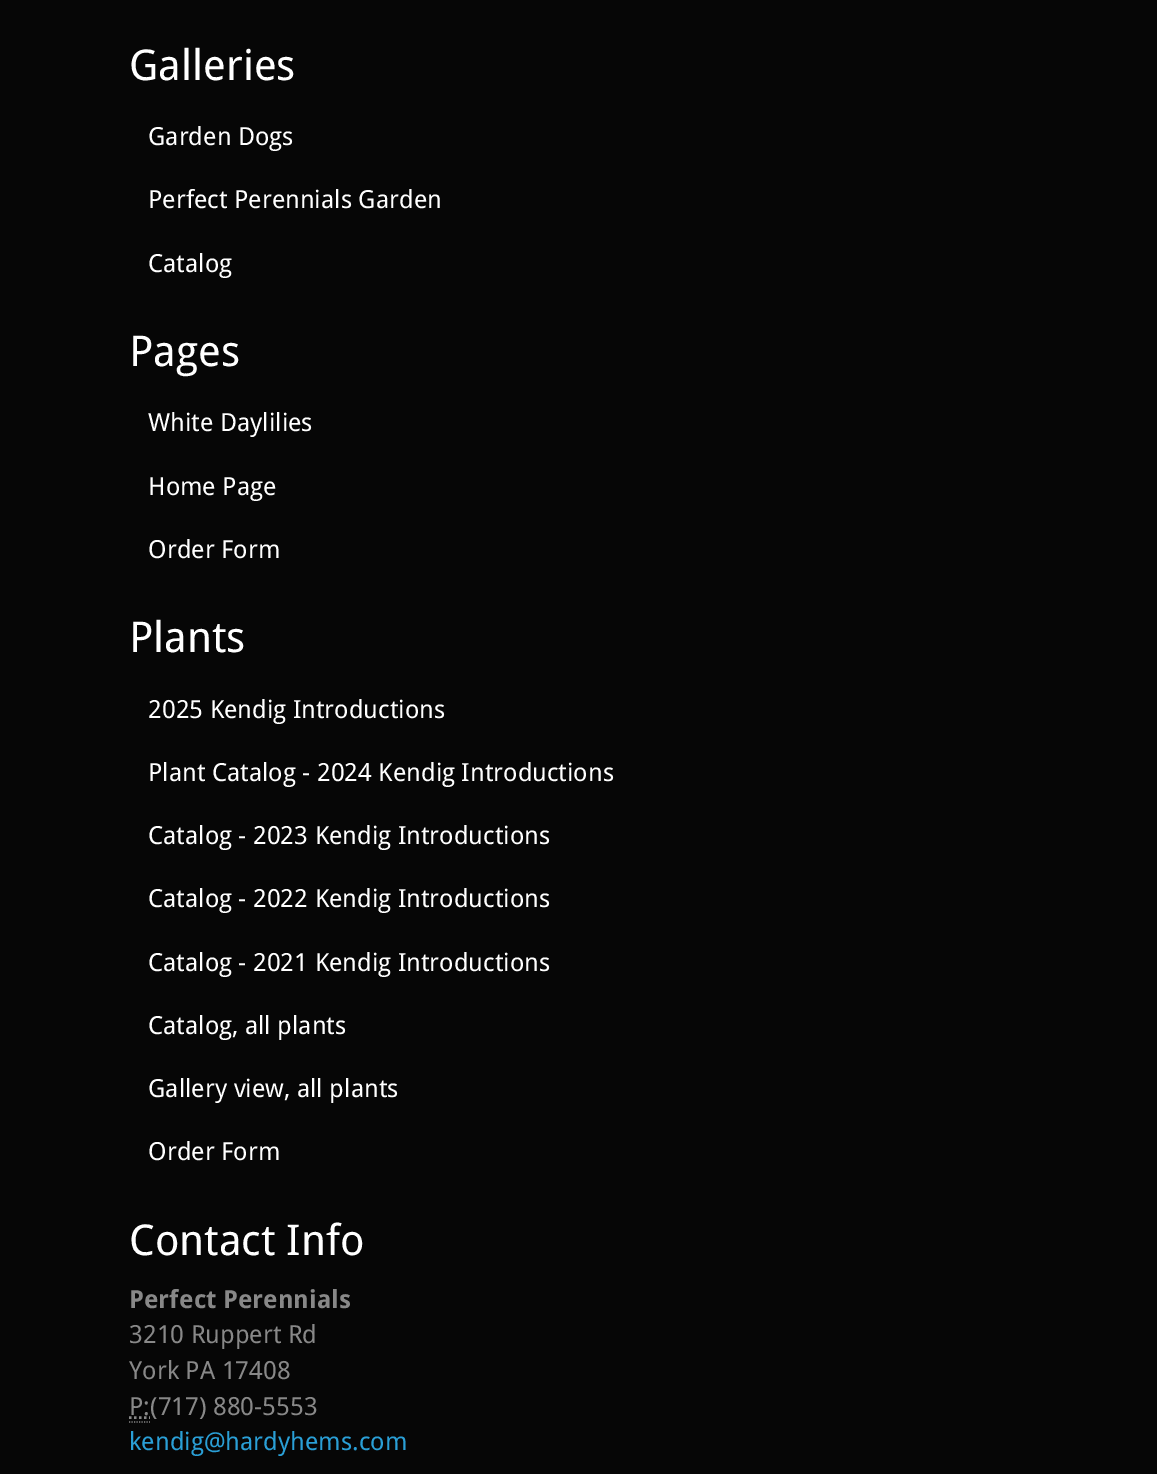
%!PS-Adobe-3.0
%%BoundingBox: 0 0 1157 1474
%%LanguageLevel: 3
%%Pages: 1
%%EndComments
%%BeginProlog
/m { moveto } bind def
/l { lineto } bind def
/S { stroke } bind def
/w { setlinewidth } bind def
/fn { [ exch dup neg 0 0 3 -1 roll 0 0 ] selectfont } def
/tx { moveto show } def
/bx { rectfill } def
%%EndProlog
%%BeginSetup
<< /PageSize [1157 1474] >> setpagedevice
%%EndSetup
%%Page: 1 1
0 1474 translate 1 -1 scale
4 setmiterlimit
0.024 setgray
0 0 1157 1474 bx
/DroidSans-Regular 42.5 fn
1 setgray
(Galleries) 129 80 tx
/DroidSans-Regular 25 fn
(Garden Dogs) 148 145 tx
(Perfect Perennials Garden) 148 208 tx
(Catalog) 148 272 tx
/DroidSans-Regular 42.5 fn
(Pages) 129 366 tx
/DroidSans-Regular 25 fn
(White Daylilies) 148 431 tx
(Home Page) 148 495 tx
(Order Form) 148 558 tx
/DroidSans-Regular 42.5 fn
(Plants) 129 652 tx
/DroidSans-Regular 25 fn
(2025 Kendig Introductions) 148 718 tx
(Plant Catalog - 2024 Kendig Introductions) 148 781 tx
(Catalog - 2023 Kendig Introductions) 148 844 tx
(Catalog - 2022 Kendig Introductions) 148 907 tx
(Catalog - 2021 Kendig Introductions) 148 971 tx
(Catalog, all plants) 148 1034 tx
(Gallery view, all plants) 148 1097 tx
(Order Form) 148 1160 tx
/DroidSans-Regular 42.5 fn
(Contact Info) 129 1255 tx
/DroidSans-Bold 25 fn
0.533 setgray
(Perfect Perennials) 129 1308 tx
/DroidSans-Regular 25 fn
(3210 Ruppert Rd) 129 1343 tx
(York PA 17408) 129 1379 tx
2.5 w
[2.5 2.5] 0 setdash
129 1417.5 m 150 1417.5 l S
(P:\(717\) 880-5553) 129 1415 tx
1.2 w
[1.25 1.25] 0 setdash
129 1422 m 150 1422 l S
0.165 0.624 0.839 setrgbcolor
(kendig@hardyhems.com) 129 1450 tx
showpage
%%EOF
